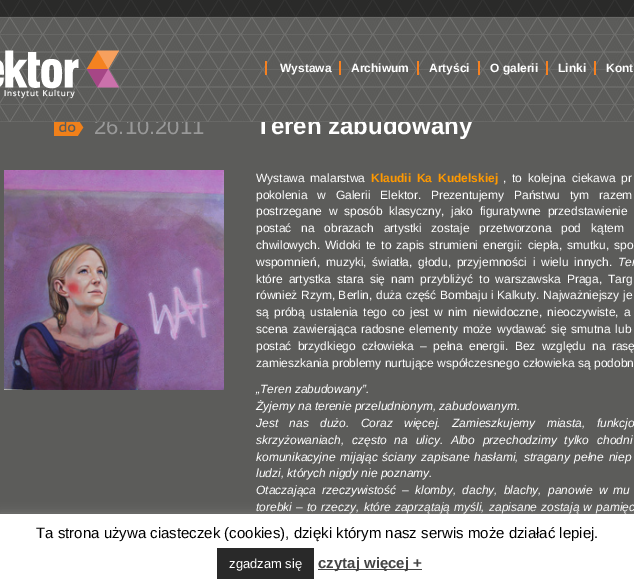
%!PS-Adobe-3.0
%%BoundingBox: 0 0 634 587
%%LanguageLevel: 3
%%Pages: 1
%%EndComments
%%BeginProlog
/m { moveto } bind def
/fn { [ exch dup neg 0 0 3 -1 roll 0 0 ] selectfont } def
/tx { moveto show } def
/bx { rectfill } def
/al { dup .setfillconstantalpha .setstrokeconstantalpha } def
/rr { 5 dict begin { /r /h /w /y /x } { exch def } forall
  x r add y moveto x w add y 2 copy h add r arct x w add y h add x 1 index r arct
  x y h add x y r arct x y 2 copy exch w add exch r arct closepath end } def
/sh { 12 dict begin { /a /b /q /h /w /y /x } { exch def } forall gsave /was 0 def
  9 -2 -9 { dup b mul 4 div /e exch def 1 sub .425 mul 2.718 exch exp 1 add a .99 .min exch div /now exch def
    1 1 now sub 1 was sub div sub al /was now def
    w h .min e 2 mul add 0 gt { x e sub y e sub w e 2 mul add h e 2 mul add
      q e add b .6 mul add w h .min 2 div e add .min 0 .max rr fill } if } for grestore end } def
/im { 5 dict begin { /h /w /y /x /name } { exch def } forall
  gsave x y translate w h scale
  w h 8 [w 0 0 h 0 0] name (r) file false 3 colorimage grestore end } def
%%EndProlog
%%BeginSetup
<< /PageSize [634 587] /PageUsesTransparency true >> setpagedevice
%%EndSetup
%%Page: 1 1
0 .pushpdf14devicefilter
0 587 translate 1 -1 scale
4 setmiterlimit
0.361 0.361 0.353 setrgbcolor
0 0 634 587 bx
/LiberationSans-Regular 22 fn
0.6 setgray
(26.10.2011) 94 134 tx
/LiberationSans-Bold 24 fn
1 setgray
(Teren zabudowany) 256 134 tx
(image0.raw) 0 0 634 122 im
0.965 0.506 0.129 setrgbcolor
265 61 2 14 bx
339 61 2 14 bx
/LiberationSans-Bold 12 fn
1 setgray
(Wystawa) 280 72 tx
0.965 0.506 0.129 setrgbcolor
417 61 2 14 bx
1 setgray
(Archiwum) 351 72 tx
0.965 0.506 0.129 setrgbcolor
478 61 2 14 bx
1 setgray
(Artyści) 429 72 tx
0.965 0.506 0.129 setrgbcolor
546 61 2 14 bx
1 setgray
(O galerii) 490 72 tx
0.965 0.506 0.129 setrgbcolor
594 61 2 14 bx
1 setgray
(Linki) 558 72 tx
(Kont) 606 72 tx
(image1.raw) 54 122 30 14 im
(image2.raw) 4 170 220 220 im
/LiberationSans-Regular 12 fn
256 182 m 2.5 0 32 (Wystawa malarstwa) widthshow
/LiberationSans-Bold 12 fn
1 0.6 0 setrgbcolor
371 182 m 2.5 0 32 (Klaudii Ka Kudelskiej) widthshow
/LiberationSans-Regular 12 fn
1 setgray
503 182 m 2.5 0 32 (, to kolejna ciekawa pr) widthshow
256 199 m 6.5 0 32 (pokolenia w Galerii Elektor. Prezentujemy Państwu tym razem) widthshow
256 215 m 3.25 0 32 (postrzegane w sposób klasyczny, jako figuratywne przedstawienie) widthshow
256 232 m 6.5 0 32 (postać na obrazach artystki zostaje przetworzona pod kątem) widthshow
256 249 m 1.75 0 32 (chwilowych. Widoki te to zapis strumieni energii: ciepła, smutku, spo) widthshow
256 266 m 2.5 0 32 (wspomnień, muzyki, światła, głodu, przyjemności i wielu innych.) widthshow
/LiberationSans-Italic 12 fn
618 266 m 2.5 0 32 (Ter) widthshow
/LiberationSans-Regular 12 fn
256 283 m 2.75 0 32 (które artystka stara się nam przybliżyć to warszawska Praga, Targ) widthshow
256 299 m 0.25 0 32 (również Rzym, Berlin, duża część Bombaju i Kalkuty. Najważniejszy je) widthshow
256 316 m 2 0 32 (są próbą ustalenia tego co jest w nim niewidoczne, nieoczywiste, a) widthshow
256 333 m 1.5 0 32 (scena zawierająca radosne elementy może wydawać się smutna lub) widthshow
256 350 m 3 0 32 (postać brzydkiego człowieka – pełna energii. Bez względu na rasę) widthshow
(zamieszkania problemy nurtujące współczesnego człowieka są podobn) 256 367 tx
/LiberationSans-Italic 12 fn
(„Teren zabudowany”.) 256 393 tx
(Żyjemy na terenie przeludnionym, zabudowanym.) 256 410 tx
256 427 m 8 0 32 (Jest nas dużo. Coraz więcej. Zamieszkujemy miasta, funkcjo) widthshow
256 444 m 4.5 0 32 (skrzyżowaniach, często na ulicy. Albo przechodzimy tylko chodni) widthshow
256 461 m 1.5 0 32 (komunikacyjne mijając ściany zapisane hasłami, stragany pełne niep) widthshow
(ludzi, których nigdy nie poznamy.) 256 477 tx
256 494 m 2.75 0 32 (Otaczająca rzeczywistość – klomby, dachy, blachy, panowie w mu) widthshow
256 511 m 0.9 0 32 (torebki – to rzeczy, które zaprzątają myśli, zapisane zostają w pamięc) widthshow
0.675 0.671 0.671 setrgbcolor
0 513 634 73 0 5 0.3 sh
1 setgray
0 514 634 73 bx
/LiberationSans-Regular 15 fn
0 setgray
(Ta strona używa ciasteczek \(cookies\), dzięki którym nasz serwis może działać lepiej.) 36 538 tx
0.161 setgray
217 548 97 31 bx
/LiberationSans-Regular 13 fn
1 setgray
(zgadzam się) 229 568 tx
0.267 setgray
318 569 104 1 bx
/LiberationSans-Bold 15 fn
(czytaj więcej +) 318 568 tx
.poppdf14devicefilter showpage
%%EOF
